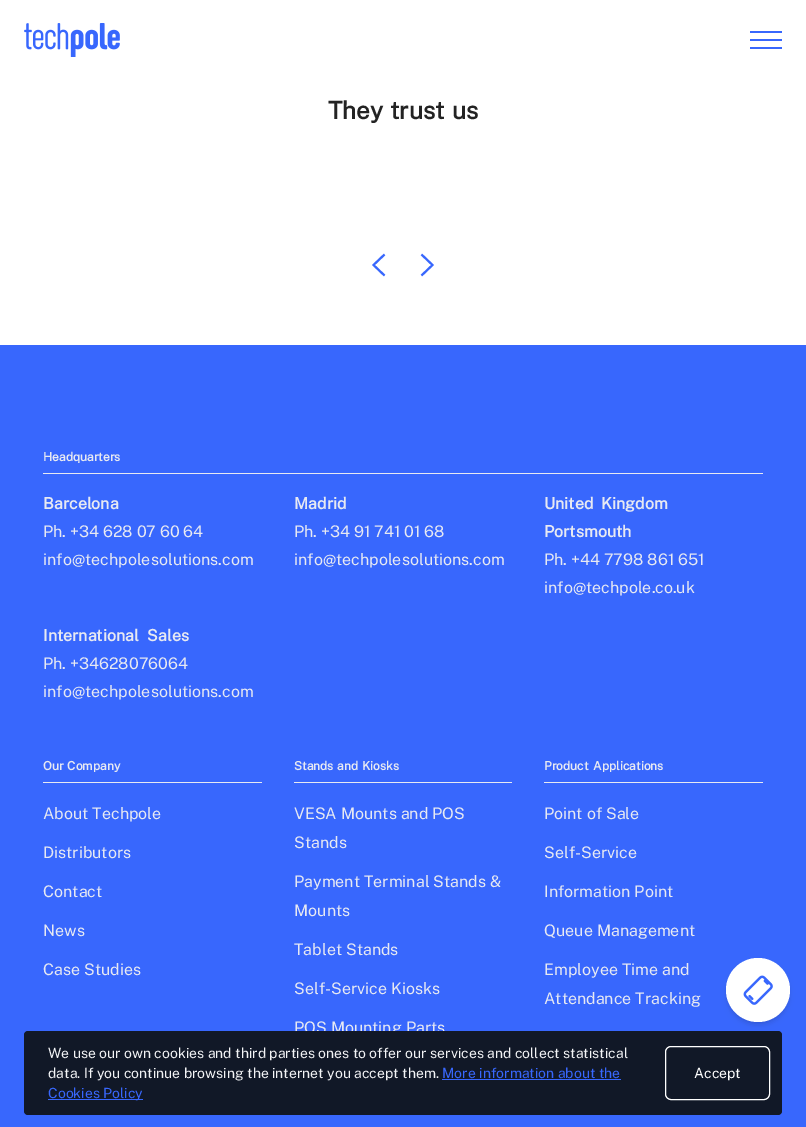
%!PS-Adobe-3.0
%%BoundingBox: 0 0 806 1127
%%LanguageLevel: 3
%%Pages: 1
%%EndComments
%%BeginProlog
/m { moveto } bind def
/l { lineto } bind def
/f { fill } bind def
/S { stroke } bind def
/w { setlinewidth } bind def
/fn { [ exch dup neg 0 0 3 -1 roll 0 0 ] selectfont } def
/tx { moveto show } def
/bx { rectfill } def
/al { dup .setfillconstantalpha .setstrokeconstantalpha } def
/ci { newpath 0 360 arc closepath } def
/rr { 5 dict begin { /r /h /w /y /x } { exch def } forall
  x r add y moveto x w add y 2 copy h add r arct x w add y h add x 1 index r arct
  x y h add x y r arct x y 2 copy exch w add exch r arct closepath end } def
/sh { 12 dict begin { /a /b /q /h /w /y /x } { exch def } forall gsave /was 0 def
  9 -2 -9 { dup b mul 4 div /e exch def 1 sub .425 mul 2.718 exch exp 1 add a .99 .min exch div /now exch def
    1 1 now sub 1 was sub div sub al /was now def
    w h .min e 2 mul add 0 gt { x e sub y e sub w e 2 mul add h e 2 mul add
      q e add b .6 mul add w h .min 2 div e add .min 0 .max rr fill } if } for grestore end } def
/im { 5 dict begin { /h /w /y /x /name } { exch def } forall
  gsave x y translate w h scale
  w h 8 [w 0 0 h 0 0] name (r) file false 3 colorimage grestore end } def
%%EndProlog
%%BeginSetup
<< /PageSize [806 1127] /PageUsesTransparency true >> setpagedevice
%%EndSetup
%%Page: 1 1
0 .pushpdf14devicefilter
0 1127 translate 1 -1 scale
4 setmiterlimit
1 setgray
0 0 806 1127 bx
(image0.raw) 24 23 96 34 im
0.22 0.404 0.992 setrgbcolor
750 31 32 2 bx
750 39 32 2 bx
750 47 32 2 bx
/PublicSans-Bold 24.25 fn
0.137 setgray
328 119 m 1 0 32 (They trust us) widthshow
0.22 0.404 0.992 setrgbcolor
2 w
384.5 275.5 m 373.5 265 l 384.5 254.5 l 421.5 254.5 m 432.5 265 l 421.5 275.5 l S
0 345 806 782 bx
0.906 0.914 0.949 setrgbcolor
43 473 720 1 bx
/PublicSans-Bold 12 fn
(Headquarters) 43 461 tx
/PublicSans-Bold 16 fn
(Barcelona) 43 509 tx
/PublicSans-Regular 16 fn
(Ph. +34 628 07 60 64) 43 537 tx
(info@techpolesolutions.com) 43 565 tx
/PublicSans-Bold 16 fn
(Madrid) 294 509 tx
/PublicSans-Regular 16 fn
(Ph. +34 91 741 01 68) 294 537 tx
(info@techpolesolutions.com) 294 565 tx
/PublicSans-Bold 16 fn
544 509 m 4 0 32 (United Kingdom) widthshow
(Portsmouth) 544 537 tx
/PublicSans-Regular 16 fn
(Ph. +44 7798 861 651) 544 565 tx
(info@techpole.co.uk) 544 593 tx
/PublicSans-Bold 16 fn
43 641 m 5 0 32 (International Sales) widthshow
/PublicSans-Regular 16 fn
(Ph. +34628076064) 43 669 tx
(info@techpolesolutions.com) 43 697 tx
43 782 219 1 bx
/PublicSans-Bold 12 fn
43 770 m 1 0 32 (Our Company) widthshow
/PublicSans-Regular 16 fn
(About Techpole) 43 819 tx
(Distributors) 43 858 tx
(Contact) 43 897 tx
(News) 43 936 tx
(Case Studies) 43 975 tx
294 782 218 1 bx
/PublicSans-Bold 12 fn
294 770 m 1 0 32 (Stands and Kiosks) widthshow
/PublicSans-Regular 16 fn
(VESA Mounts and POS) 294 819 tx
(Stands) 294 848 tx
(Payment Terminal Stands &) 294 887 tx
(Mounts) 294 916 tx
(Tablet Stands) 294 955 tx
(Self-Service Kiosks) 294 994 tx
(POS Mounting Parts) 294 1033 tx
544 782 219 1 bx
/PublicSans-Bold 12 fn
544 770 m 2 0 32 (Product Applications) widthshow
/PublicSans-Regular 16 fn
(Point of Sale) 544 819 tx
(Self-Service) 544 858 tx
(Information Point) 544 897 tx
(Queue Management) 544 936 tx
(Employee Time and) 544 975 tx
(Attendance Tracking) 544 1004 tx
0 setgray
728 962 60 60 30 2 0.1 sh
727 963 62 62 31 3 0.1 sh
1 setgray
758 990 32 ci f
(image1.raw) 743 975 30 30 im
0.067 0.094 0.153 setrgbcolor
24 1031 758 84 4 rr f
/PublicSans-Regular 14 fn
0.953 0.957 0.965 setrgbcolor
(We use our own cookies and third parties ones to offer our services and collect statistical) 48 1058 tx
(data. If you continue browsing the internet you accept them.) 48 1078 tx
0.22 0.404 0.992 setrgbcolor
(More information about the) 442 1078 tx
442 1079 179 1 bx
48 1099 95 1 bx
(Cookies Policy) 48 1098 tx
1 setgray
1 w
665.5 1046.5 104 53 5.5 rr S
(Accept) 694 1078 tx
.poppdf14devicefilter showpage
%%EOF
